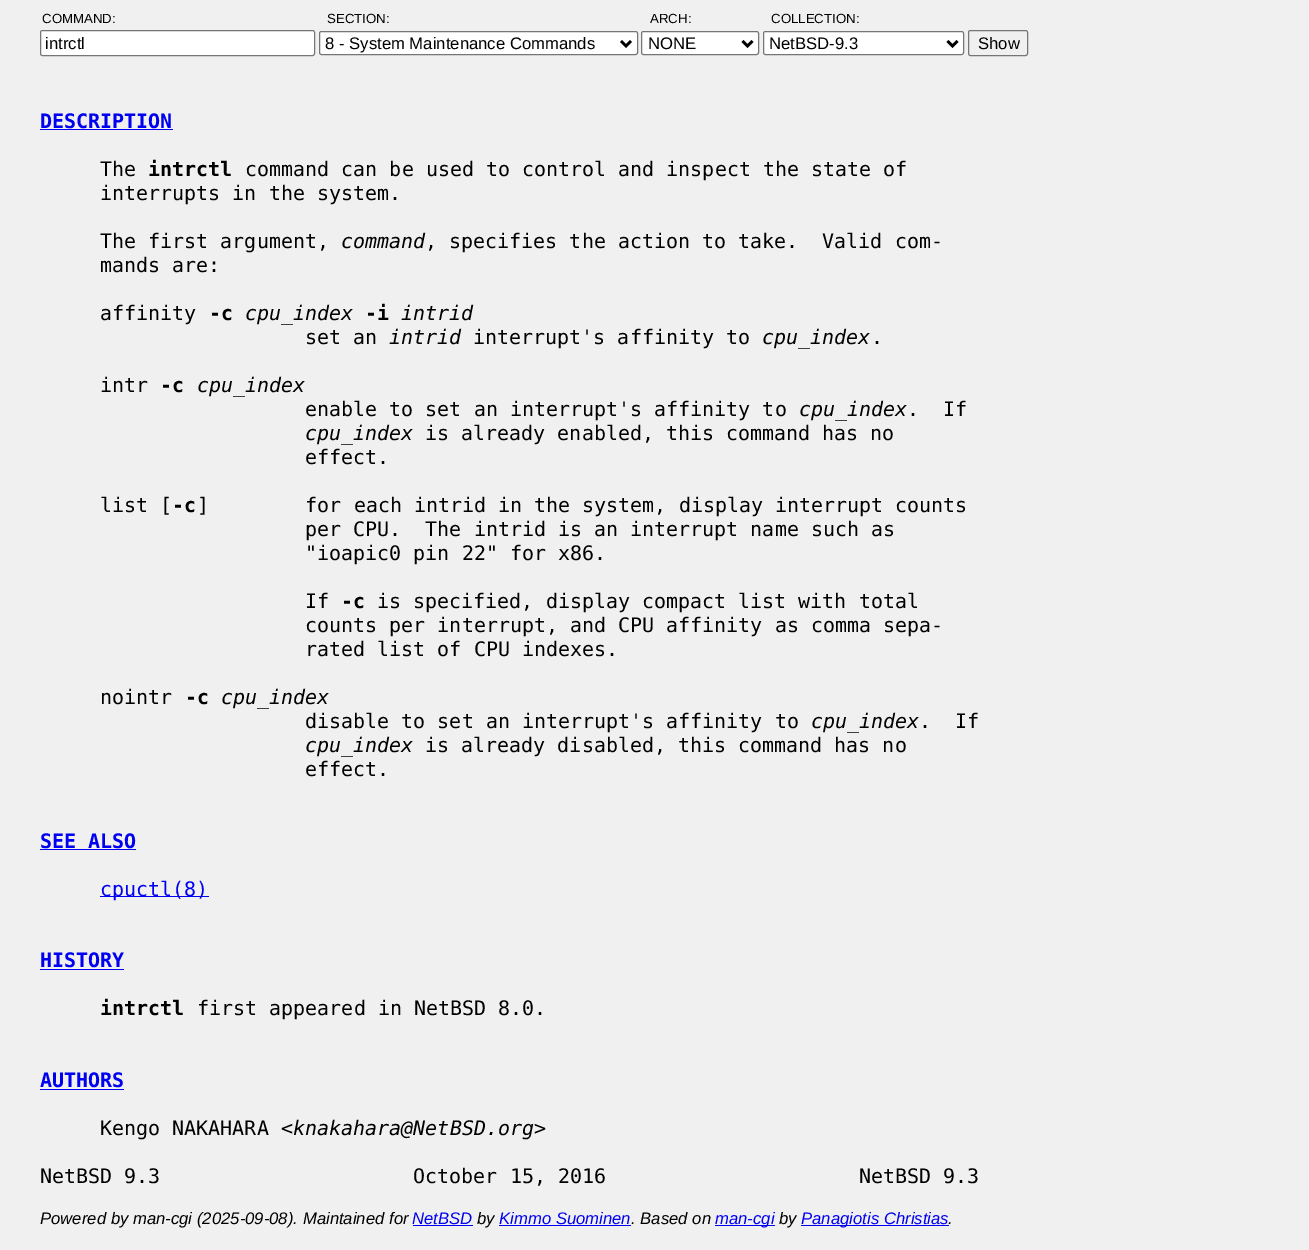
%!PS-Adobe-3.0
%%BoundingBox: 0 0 1309 1250
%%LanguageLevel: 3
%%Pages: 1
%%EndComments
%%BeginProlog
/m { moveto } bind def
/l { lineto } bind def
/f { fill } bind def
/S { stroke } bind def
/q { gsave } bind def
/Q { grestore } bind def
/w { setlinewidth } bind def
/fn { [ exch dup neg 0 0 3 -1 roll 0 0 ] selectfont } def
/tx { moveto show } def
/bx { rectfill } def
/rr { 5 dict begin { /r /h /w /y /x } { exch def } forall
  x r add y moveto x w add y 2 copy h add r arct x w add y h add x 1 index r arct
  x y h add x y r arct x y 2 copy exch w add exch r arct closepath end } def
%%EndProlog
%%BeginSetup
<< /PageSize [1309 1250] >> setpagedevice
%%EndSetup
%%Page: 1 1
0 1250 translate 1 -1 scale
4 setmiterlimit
0.941 setgray
0 0 1309 1250 bx
/LiberationSans-Regular 13.25 fn
0 setgray
(COMMAND:) 42 23 tx
1 setgray
40.5 30.5 274 25 2 rr q f Q
0.463 setgray
S
/LiberationSans-Regular 16.7 fn
0 setgray
(intrctl) 45 49 tx
/LiberationSans-Regular 13.25 fn
(SECTION:) 327 23 tx
1 setgray
319.5 31.5 318 23 2 rr q f Q
0.463 setgray
S
0 setgray
2.5 w
621 41 m 626 46 l 631 41 l S
/LiberationSans-Regular 16.7 fn
(8 - System Maintenance Commands) 325 49 tx
/LiberationSans-Regular 13.25 fn
(ARCH:) 650 23 tx
1 setgray
641.5 31.5 117 23 2 rr q f Q
0.463 setgray
1 w
S
0 setgray
2.5 w
742.5 41 m 747.5 46 l 752.5 41 l S
/LiberationSans-Regular 16.7 fn
(NONE) 648 49 tx
/LiberationSans-Regular 13.25 fn
(COLLECTION:) 771 23 tx
1 setgray
763.5 31.5 200 23 2 rr q f Q
0.463 setgray
1 w
S
0 setgray
2.5 w
947.5 41 m 952.5 46 l 957.5 41 l S
/LiberationSans-Regular 16.7 fn
(NetBSD-9.3) 769 49 tx
0.463 setgray
1 w
968.5 30.5 59 25 2 rr S
0 setgray
(Show) 978 49 tx
/DejaVuSansMono-Bold 20 fn
0 0 0.941 setrgbcolor
(DESCRIPTION) 40 128 tx
40 129 133 1 bx
/DejaVuSansMono-Regular 20 fn
0 setgray
(The) 100 176 tx
/DejaVuSansMono-Bold 20 fn
(intrctl) 148 176 tx
/DejaVuSansMono-Regular 20 fn
(command can be used to control and inspect the state of) 245 176 tx
(interrupts in the system.) 100 200 tx
(The first argument,) 100 248 tx
/DejaVuSansMono-Italic 20 fn
(command) 341 248 tx
/DejaVuSansMono-Regular 20 fn
(, specifies the action to take.  Valid com-) 425 248 tx
(mands are:) 100 272 tx
(affinity) 100 320 tx
/DejaVuSansMono-Bold 20 fn
(-c) 209 320 tx
/DejaVuSansMono-Italic 20 fn
(cpu_index) 245 320 tx
/DejaVuSansMono-Bold 20 fn
(-i) 365 320 tx
/DejaVuSansMono-Italic 20 fn
(intrid) 401 320 tx
/DejaVuSansMono-Regular 20 fn
(set an) 305 344 tx
/DejaVuSansMono-Italic 20 fn
(intrid) 389 344 tx
/DejaVuSansMono-Regular 20 fn
(interrupt's affinity to) 473 344 tx
/DejaVuSansMono-Italic 20 fn
(cpu_index) 762 344 tx
/DejaVuSansMono-Regular 20 fn
(.) 871 344 tx
(intr) 100 392 tx
/DejaVuSansMono-Bold 20 fn
(-c) 160 392 tx
/DejaVuSansMono-Italic 20 fn
(cpu_index) 197 392 tx
/DejaVuSansMono-Regular 20 fn
(enable to set an interrupt's affinity to) 305 416 tx
/DejaVuSansMono-Italic 20 fn
(cpu_index) 799 416 tx
/DejaVuSansMono-Regular 20 fn
(.  If) 907 416 tx
/DejaVuSansMono-Italic 20 fn
(cpu_index) 305 440 tx
/DejaVuSansMono-Regular 20 fn
(is already enabled, this command has no) 425 440 tx
(effect.) 305 464 tx
(list [) 100 512 tx
/DejaVuSansMono-Bold 20 fn
(-c) 172 512 tx
/DejaVuSansMono-Regular 20 fn
(]        for each intrid in the system, display interrupt counts) 197 512 tx
(per CPU.  The intrid is an interrupt name such as) 305 536 tx
("ioapic0 pin 22" for x86.) 305 560 tx
(If) 305 608 tx
/DejaVuSansMono-Bold 20 fn
(-c) 341 608 tx
/DejaVuSansMono-Regular 20 fn
(is specified, display compact list with total) 377 608 tx
(counts per interrupt, and CPU affinity as comma sepa-) 305 632 tx
(rated list of CPU indexes.) 305 656 tx
(nointr) 100 704 tx
/DejaVuSansMono-Bold 20 fn
(-c) 185 704 tx
/DejaVuSansMono-Italic 20 fn
(cpu_index) 221 704 tx
/DejaVuSansMono-Regular 20 fn
(disable to set an interrupt's affinity to) 305 728 tx
/DejaVuSansMono-Italic 20 fn
(cpu_index) 811 728 tx
/DejaVuSansMono-Regular 20 fn
(.  If) 919 728 tx
/DejaVuSansMono-Italic 20 fn
(cpu_index) 305 752 tx
/DejaVuSansMono-Regular 20 fn
(is already disabled, this command has no) 425 752 tx
(effect.) 305 776 tx
/DejaVuSansMono-Bold 20 fn
0 0 0.941 setrgbcolor
(SEE ALSO) 40 848 tx
40 849 96 1 bx
100 896 109 1 bx
/DejaVuSansMono-Regular 20 fn
(cpuctl\(8\)) 100 896 tx
/DejaVuSansMono-Bold 20 fn
(HISTORY) 40 967 tx
40 969 84 1 bx
0 setgray
(intrctl) 100 1015 tx
/DejaVuSansMono-Regular 20 fn
(first appeared in NetBSD 8.0.) 197 1015 tx
/DejaVuSansMono-Bold 20 fn
0 0 0.941 setrgbcolor
(AUTHORS) 40 1087 tx
40 1089 84 1 bx
/DejaVuSansMono-Regular 20 fn
0 setgray
(Kengo NAKAHARA <) 100 1135 tx
/DejaVuSansMono-Italic 20 fn
(knakahara@NetBSD.org) 293 1135 tx
/DejaVuSansMono-Regular 20 fn
(>) 534 1135 tx
(NetBSD 9.3                     October 15, 2016                     NetBSD 9.3) 40 1183 tx
/LiberationSans-Italic 16.7 fn
(Powered by man-cgi \(2025-09-08\). Maintained for) 40 1224 tx
0 0 0.941 setrgbcolor
(NetBSD) 412 1224 tx
413 1225 60 1 bx
0 setgray
(by) 477 1224 tx
0 0 0.941 setrgbcolor
(Kimmo Suominen) 499 1224 tx
499 1225 132 1 bx
0 setgray
(. Based on) 631 1224 tx
0 0 0.941 setrgbcolor
715 1225 60 1 bx
(man-cgi) 715 1224 tx
0 setgray
(by) 779 1224 tx
0 0 0.941 setrgbcolor
801 1225 148 1 bx
(Panagiotis Christias) 801 1224 tx
0 setgray
(.) 948 1224 tx
showpage
%%EOF
